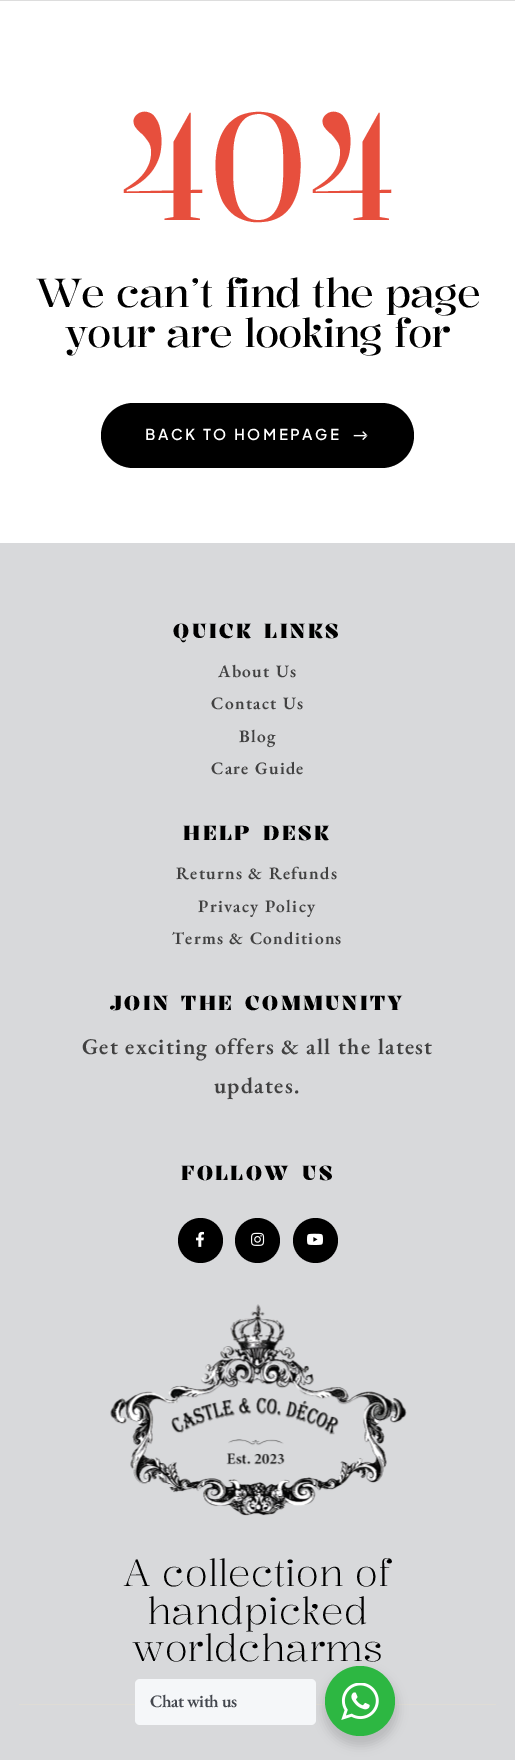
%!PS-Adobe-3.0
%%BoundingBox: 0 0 515 1760
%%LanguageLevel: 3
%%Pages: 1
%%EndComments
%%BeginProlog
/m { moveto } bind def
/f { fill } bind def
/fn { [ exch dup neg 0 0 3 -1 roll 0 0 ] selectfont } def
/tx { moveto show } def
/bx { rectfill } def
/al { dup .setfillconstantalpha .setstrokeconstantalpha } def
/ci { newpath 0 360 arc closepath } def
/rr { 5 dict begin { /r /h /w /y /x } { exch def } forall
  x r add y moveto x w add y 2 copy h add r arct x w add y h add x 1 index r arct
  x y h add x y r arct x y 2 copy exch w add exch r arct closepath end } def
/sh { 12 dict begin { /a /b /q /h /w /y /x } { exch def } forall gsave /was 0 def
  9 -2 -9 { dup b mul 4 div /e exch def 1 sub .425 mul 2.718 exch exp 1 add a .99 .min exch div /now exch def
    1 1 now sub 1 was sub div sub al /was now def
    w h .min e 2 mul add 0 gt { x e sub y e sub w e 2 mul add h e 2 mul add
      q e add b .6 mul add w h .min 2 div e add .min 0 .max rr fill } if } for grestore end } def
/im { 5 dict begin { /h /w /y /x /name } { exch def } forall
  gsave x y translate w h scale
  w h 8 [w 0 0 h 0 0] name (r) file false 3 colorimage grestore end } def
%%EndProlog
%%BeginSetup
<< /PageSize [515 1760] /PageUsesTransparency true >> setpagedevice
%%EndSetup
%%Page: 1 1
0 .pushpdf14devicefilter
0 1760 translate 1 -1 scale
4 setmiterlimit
1 setgray
0 0 515 1760 bx
0.867 setgray
0 0 515 1 bx
/Kalnia-Regular 150 fn
0.906 0.31 0.239 setrgbcolor
118 220 m -1.25 0 (404) ashow
/Kalnia-Regular 40 fn
0 setgray
36 307 m -1.25 0 (We can’t find the page) ashow
65 347 m -1.25 0 (your are looking for) ashow
101 403 313 65 32.5 rr f
/PlusJakartaSans-SemiBold 15 fn
1 setgray
145 440 m 2.5 0 (BACK TO HOMEPAGE) ashow
(image0.raw) 353 431 15 9 im
0.847 0.851 0.859 setrgbcolor
0 543 515 1217 bx
/Kalnia-Bold 20 fn
0 setgray
173 638 m 2.5 0 (QUICK LINKS) ashow
/EBGaramond-SemiBold 17.5 fn
0.255 setgray
218 677 m 1.25 0 (About Us) ashow
211 709 m 1.25 0 (Contact Us) ashow
239 742 m 1.25 0 (Blog) ashow
211 774 m 1.25 0 (Care Guide) ashow
/Kalnia-Bold 20 fn
0 setgray
183 840 m 2.5 0 (HELP DESK) ashow
/EBGaramond-SemiBold 17.5 fn
0.255 setgray
176 879 m 1.25 0 (Returns & Refunds) ashow
198 912 m 1.25 0 (Privacy Policy) ashow
172 944 m 1.25 0 (Terms & Conditions) ashow
/Kalnia-Bold 20 fn
0 setgray
110 1010 m 2.5 0 (JOIN THE COMMUNITY) ashow
/EBGaramond-SemiBold 22.5 fn
0.255 setgray
82 1054 m 1.25 0 (Get exciting offers & all the latest) ashow
214 1093 m 1.25 0 (updates.) ashow
/Kalnia-Bold 20 fn
0 setgray
181 1180 m 2.5 0 (FOLLOW US) ashow
200.5 1240.5 22.5 ci f
(image1.raw) 196 1231 8 16 im
257.5 1240.5 22.5 ci f
(image2.raw) 250 1232 15 14 im
315.5 1240.5 22.5 ci f
(image3.raw) 307 1233 16 12 im
(image4.raw) 110 1304 297 212 im
/Kalnia-Light 37.5 fn
(A collection of) 123 1586 tx
(handpicked) 147 1624 tx
(worldcharms) 132 1661 tx
0.875 0.863 0.835 setrgbcolor
19 1704 477 1 bx
0 setgray
323 1671 75 75 37.5 5 0.14 sh
0.961 0.969 0.976 setrgbcolor
135 1679 181 46 5 rr f
/EBGaramond-SemiBold 17.5 fn
0.263 0.278 0.306 setrgbcolor
150 1707 m -0.5 0 (Chat with us) ashow
0.176 0.718 0.259 setrgbcolor
360 1701 35 ci f
(image5.raw) 341 1683 38 37 im
.poppdf14devicefilter showpage
%%EOF
